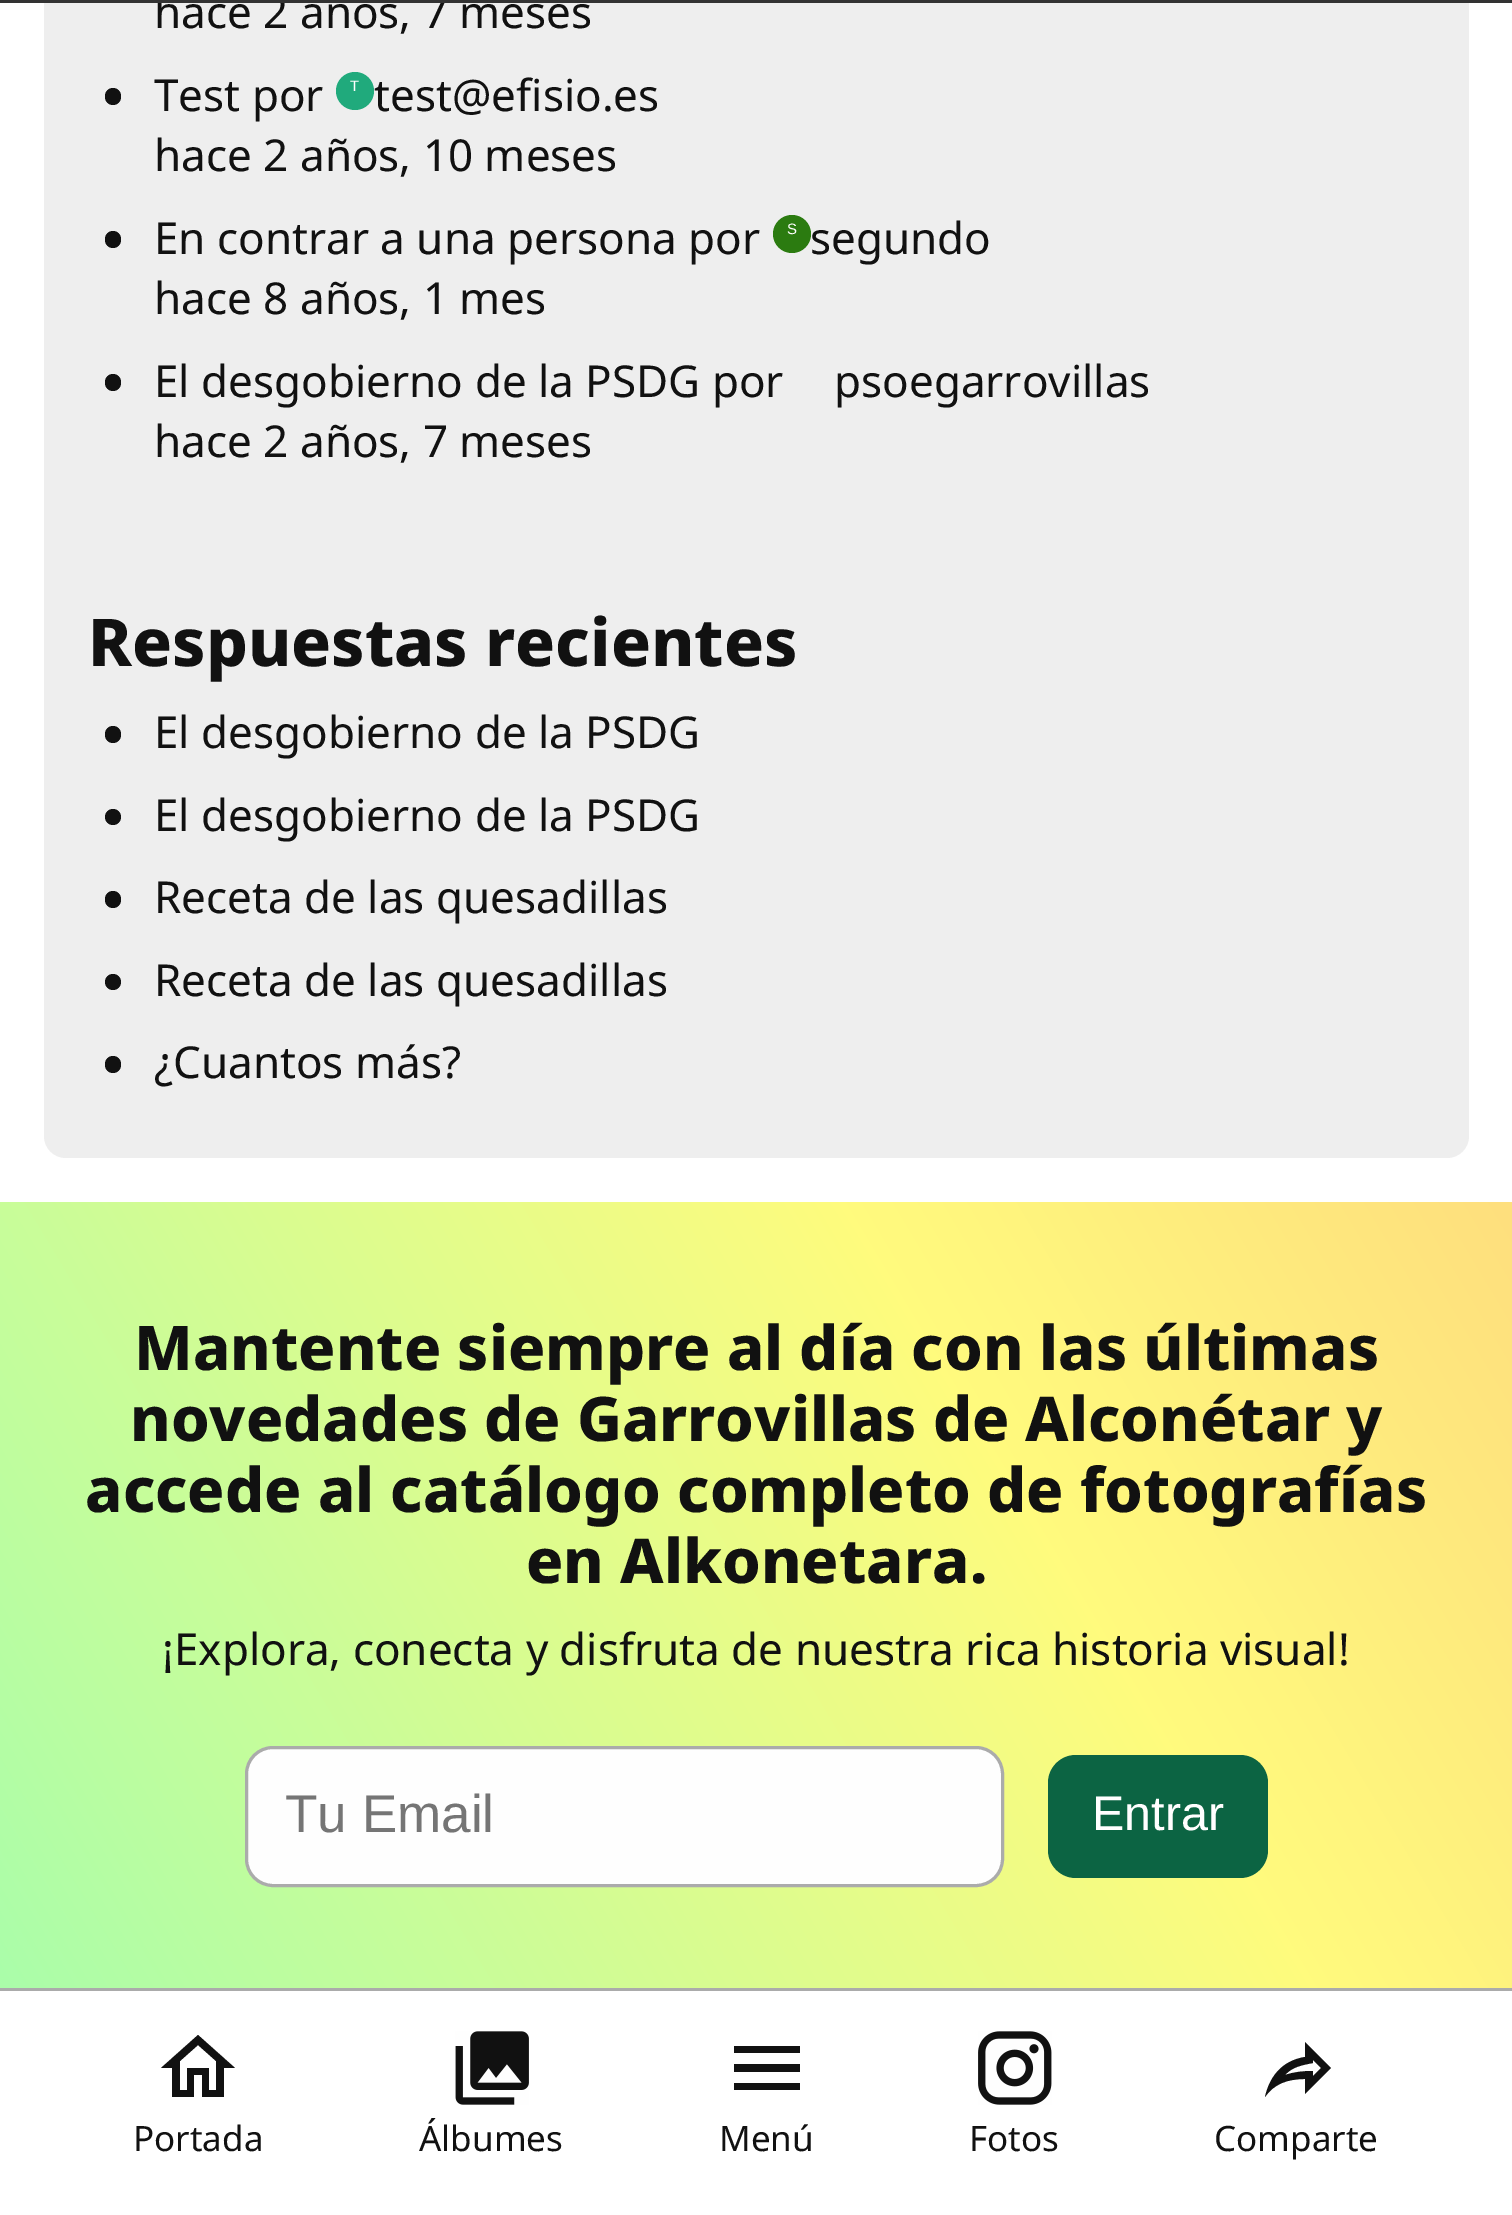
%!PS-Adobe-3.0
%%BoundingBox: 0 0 1512 2215
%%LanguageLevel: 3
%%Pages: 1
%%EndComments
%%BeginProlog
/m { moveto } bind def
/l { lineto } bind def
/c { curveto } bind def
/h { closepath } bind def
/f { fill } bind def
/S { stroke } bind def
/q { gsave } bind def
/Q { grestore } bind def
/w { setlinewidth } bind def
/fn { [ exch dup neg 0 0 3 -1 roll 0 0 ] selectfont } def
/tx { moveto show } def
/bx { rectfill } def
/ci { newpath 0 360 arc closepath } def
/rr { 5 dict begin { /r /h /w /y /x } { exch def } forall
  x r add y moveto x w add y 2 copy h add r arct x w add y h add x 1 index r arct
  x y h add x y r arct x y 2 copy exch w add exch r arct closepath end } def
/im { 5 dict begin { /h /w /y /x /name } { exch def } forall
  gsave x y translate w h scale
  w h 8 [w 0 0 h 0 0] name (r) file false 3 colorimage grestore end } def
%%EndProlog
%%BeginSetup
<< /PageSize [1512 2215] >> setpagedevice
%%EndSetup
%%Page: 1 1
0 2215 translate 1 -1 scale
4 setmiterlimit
1 setgray
0 0 1512 2215 bx
0.933 setgray
44 -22 1425 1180 22 rr f
/NotoSans-Regular 44 fn
0.067 setgray
(hace 2 años, 7 meses) 154 28 tx
0.2 setgray
0 0 1512 3 bx
0.067 setgray
(Test por) 154 111 tx
0.125 0.667 0.486 setrgbcolor
355 91 19 ci f
/LiberationSans-Regular 15 fn
1 setgray
(T) 350 91 tx
/NotoSans-Regular 44 fn
0.067 setgray
(test@efisio.es) 374 111 tx
105 88 16 17 8 rr f
(hace 2 años, 10 meses) 154 171 tx
(En contrar a una persona por) 154 254 tx
0.169 0.482 0.063 setrgbcolor
792 234 19 ci f
/LiberationSans-Regular 15 fn
1 setgray
(S) 787 234 tx
/NotoSans-Regular 44 fn
0.067 setgray
(segundo) 810 254 tx
105 231 16 17 8 rr f
(hace 8 años, 1 mes) 154 314 tx
105 374 16 17 8 rr f
(El desgobierno de la PSDG por) 154 397 tx
(psoegarrovillas) 834 397 tx
(hace 2 años, 7 meses) 154 457 tx
/NotoSans-ExtraBold 66 fn
(Respuestas recientes) 88 666 tx
105 726 16 17 8 rr f
/NotoSans-Regular 44 fn
(El desgobierno de la PSDG) 154 748 tx
113 817 8 ci f
(El desgobierno de la PSDG) 154 831 tx
105 891 16 17 8 rr f
(Receta de las quesadillas) 154 913 tx
113 982 8 ci f
(Receta de las quesadillas) 154 996 tx
105 1056 16 17 8 rr f
(¿Cuantos más?) 154 1078 tx
q 0 1202 m 1512 1202 l 1512 1988 l 0 1988 l h clip newpath
<< /ShadingType 2 /ColorSpace /DeviceRGB /Coords [-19 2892 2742 1234] /Extend [true true] /Function << /FunctionType 3 /Domain [0 1] /Functions [<< /FunctionType 2 /Domain [0 1] /C0 [0.522 1 0.741] /C1 [1 0.984 0.49] /N 1 >> << /FunctionType 2 /Domain [0 1] /C0 [1 0.984 0.49] /C1 [0.984 0.671 0.494] /N 1 >>] /Bounds [0.5] /Encode [0 1 0 1] >> >> shfill Q
/NotoSans-ExtraBold 61.6 fn
(Mantente siempre al día con las últimas) 134 1370 tx
(novedades de Garrovillas de Alconétar y) 130 1441 tx
(accede al catálogo completo) 85 1512 tx
(de fotografías) 987 1512 tx
(en Alkonetara.) 526 1583 tx
/NotoSans-Regular 44 fn
(¡Explora, conecta y disfruta de nuestra rica historia visual!) 162 1665 tx
0.996 setgray
246.5 1747.5 756 138 26.5 rr q f Q
0.671 setgray
3 w
S
q
286 1785 679 60 rectclip
/LiberationSans-Regular 53 fn
0.459 setgray
(Tu Email) 285 1832 tx
Q
0.047 0.392 0.263 setrgbcolor
1048 1755 220 123 28 rr f
/LiberationSans-Regular 48.5 fn
1 setgray
(Entrar) 1092 1830 tx
0.671 setgray
0 1988 1512 3 bx
0.067 setgray
198 2045 m 216 2061 l 216 2090 l 209 2090 l 209 2068 l 187 2068 l 187 2090 l 180 2090 l 180 2061 l 198 2045 l 198 2035 m 161 2068 l 172 2068 l 172 2097 l 194 2097 l 194 2075 l 202 2075 l 202 2097 l 224 2097 l 224 2068 l 235 2068 l f
/NotoSans-Regular 35 fn
(Portada) 133 2151 tx
(image0.raw) 455 2031 74 74 im
(Álbumes) 419 2151 tx
734 2046 m 800 2046 l 800 2053 l 734 2053 l 734 2046 l 734 2064 m 800 2064 l 800 2072 l 734 2072 l 734 2064 l 734 2083 m 800 2083 l 800 2090 l 734 2090 l h f
(Menú) 719 2151 tx
(image1.raw) 978 2031 74 74 im
(Fotos) 969 2151 tx
1305 2042 m 1305 2057 l 1280 2061 1269 2079 1265 2097 c 1274 2084 1287 2079 1305 2079 c 1305 2094 l 1331 2068 l 1305 2042 l 1313 2060 m 1321 2068 l 1313 2076 l 1313 2071 l 1303 2071 1294 2072 1285 2075 c 1292 2067 1302 2065 1313 2063 c h f
(Comparte) 1214 2151 tx
showpage
%%EOF
